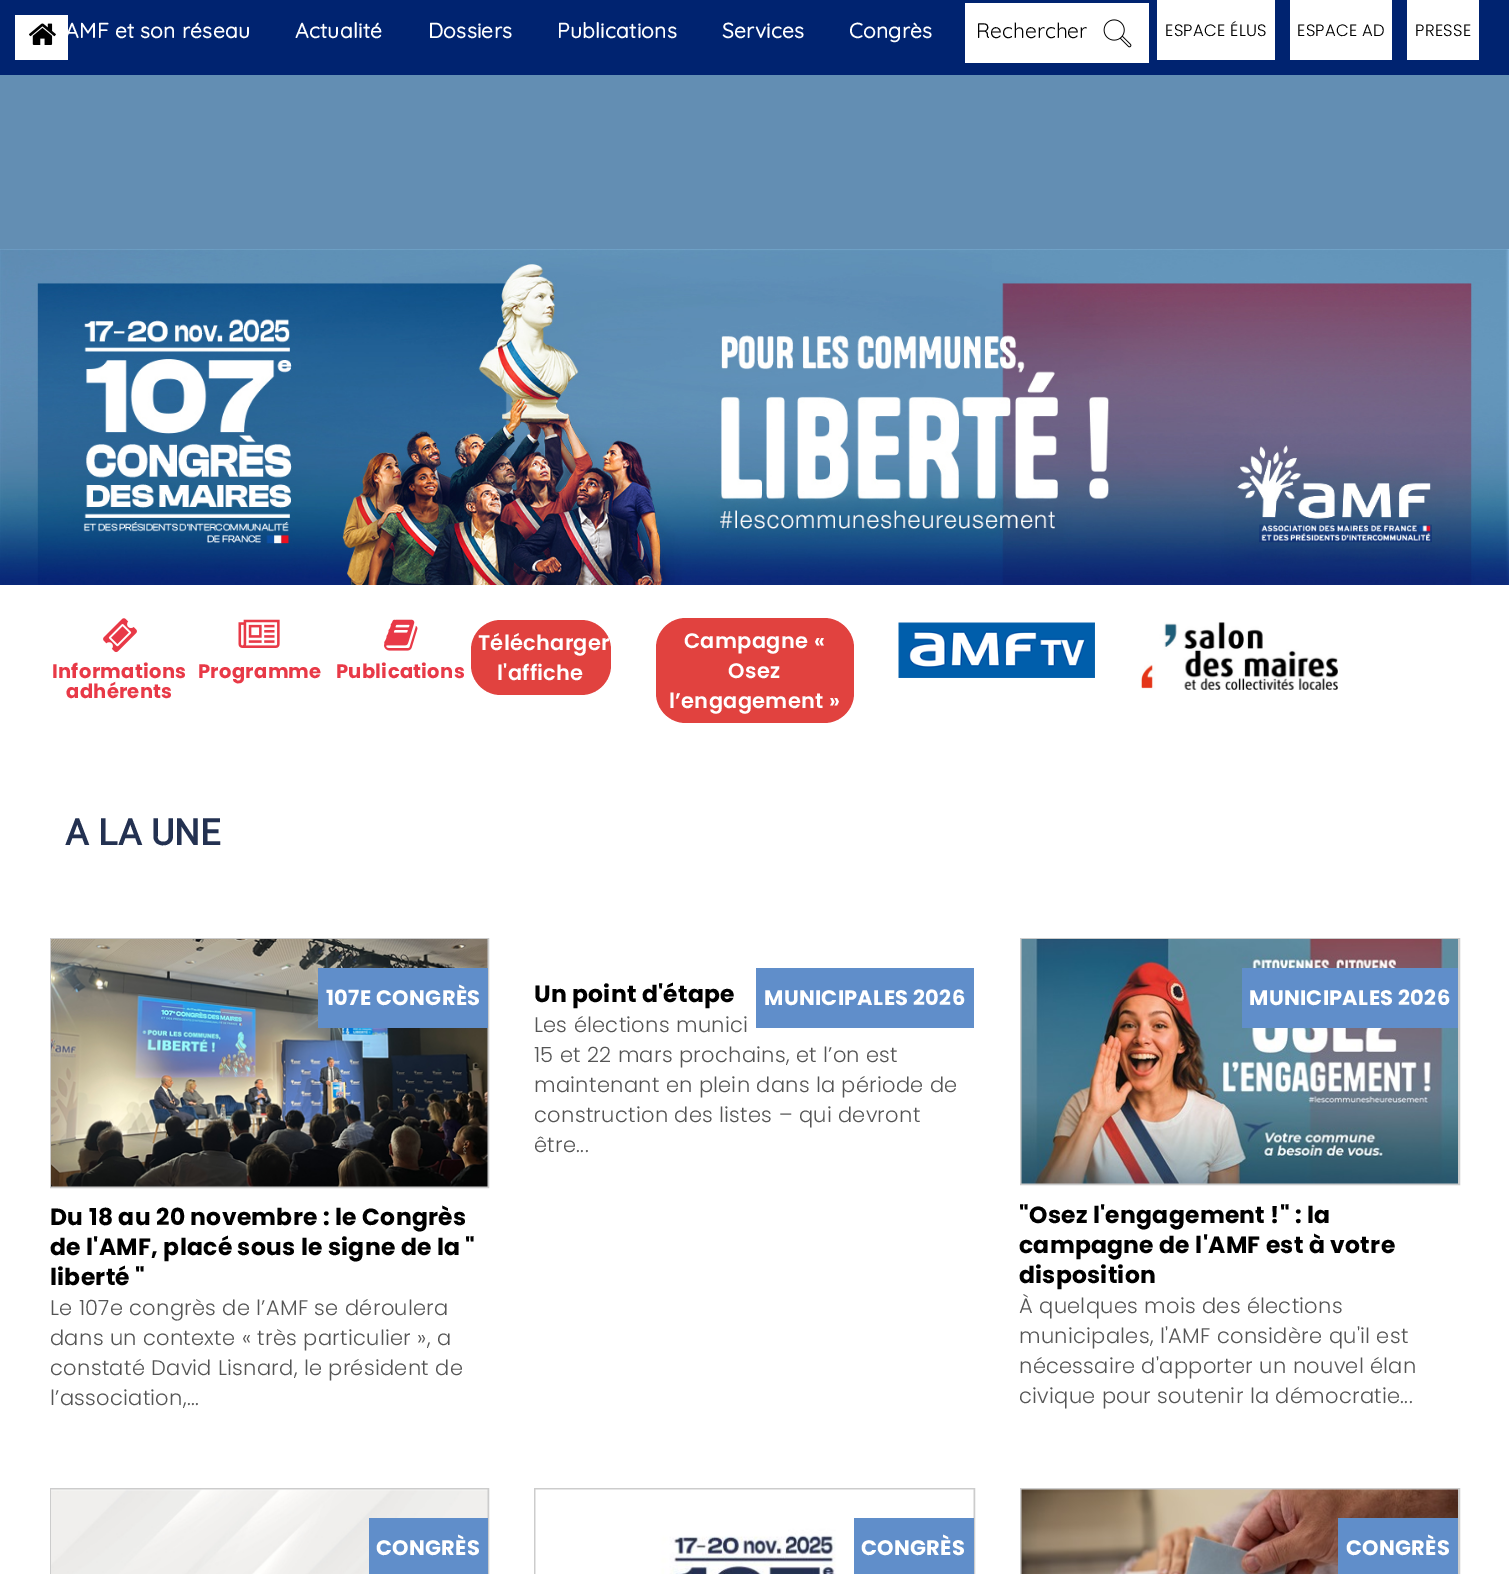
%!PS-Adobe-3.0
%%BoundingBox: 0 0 1509 1574
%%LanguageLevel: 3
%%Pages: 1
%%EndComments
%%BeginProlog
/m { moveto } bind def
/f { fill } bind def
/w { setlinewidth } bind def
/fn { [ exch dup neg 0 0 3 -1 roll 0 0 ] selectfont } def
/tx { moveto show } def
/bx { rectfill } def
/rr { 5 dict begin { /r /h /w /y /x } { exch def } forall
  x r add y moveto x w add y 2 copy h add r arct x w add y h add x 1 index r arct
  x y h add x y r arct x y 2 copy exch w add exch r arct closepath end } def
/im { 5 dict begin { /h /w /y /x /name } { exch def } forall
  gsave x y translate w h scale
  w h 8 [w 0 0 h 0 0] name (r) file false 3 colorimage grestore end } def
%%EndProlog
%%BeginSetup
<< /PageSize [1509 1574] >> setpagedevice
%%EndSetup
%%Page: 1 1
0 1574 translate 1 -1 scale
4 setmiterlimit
1 setgray
0 0 1509 1574 bx
0.388 0.557 0.702 setrgbcolor
0 75 1509 174 bx
(image0.raw) 0 249 1509 336 im
0 0.137 0.439 setrgbcolor
0 0 1509 75 bx
1 setgray
15 15 53 45 bx
(image1.raw) 29 23 27 22 im
/Quicksand-Bold 21 fn
65 38 m 0.3 0 (AMF et son réseau) ashow
295 38 m 0.3 0 (Actualité) ashow
428 38 m 0.3 0 (Dossiers) ashow
557 38 m 0.3 0 (Publications) ashow
722 38 m 0.3 0 (Services) ashow
849 38 m 0.3 0 (Congrès) ashow
965 3 184 60 bx
/Quicksand-Light 21 fn
0 setgray
(Rechercher) 976 38 tx
(image2.raw) 1103 19 29 29 im
1 setgray
1157 0 118 60 bx
/Poppins-Light 16.5 fn
0 setgray
1165 36 m 0.3 0 (ESPACE ÉLUS) ashow
1 setgray
1290 0 102 60 bx
0 setgray
1297 36 m 0.3 0 (ESPACE AD) ashow
1 setgray
1407 0 72 60 bx
0 setgray
1415 36 m 0.3 0 (PRESSE) ashow
(image3.raw) 103 618 34 35 im
/Poppins-Bold 19.5 fn
0.91 0.224 0.278 setrgbcolor
52 678 m 0.3 0 (Informations) ashow
66 698 m 0.3 0 (adhérents) ashow
(image4.raw) 238 619 42 29 im
198 678 m 0.3 0 (Programme) ashow
(image5.raw) 384 619 34 32 im
336 678 m 0.3 0 (Publications) ashow
0.882 0.259 0.247 setrgbcolor
471 620 140 75 30 rr f
/Poppins-SemiBold 21 fn
1 setgray
478 650 m 0.3 0 (Télécharger) ashow
497 680 m 0.3 0 (l'affiche) ashow
0.882 0.259 0.247 setrgbcolor
656 618 198 105 30 rr f
1 setgray
684 648 m 0.3 0 (Campagne «) ashow
728 678 m 0.3 0 (Osez) ashow
669 708 m 0.3 0 (l’engagement ») ashow
(image6.raw) 898 622 197 56 im
(image7.raw) 1140 622 198 68 im
/Roboto-Bold 36 fn
0.137 0.192 0.318 setrgbcolor
65 845 m 0.3 0 (A LA UNE) ashow
0.8 setgray
2 w
51 939 437 248 rectstroke
(image8.raw) 51 939 437 248 im
0.376 0.557 0.792 setrgbcolor
318 968 170 60 bx
/Poppins-Bold 21 fn
1 setgray
326 1005 m 0.3 0 (107E CONGRÈS) ashow
/Poppins-Bold 23.4 fn
0 setgray
50 1225 m 0.3 0 (Du 18 au 20 novembre : le Congrès) ashow
50 1255 m 0.3 0 (de l'AMF, placé sous le signe de la ") ashow
50 1285 m 0.3 0 (liberté ") ashow
/Poppins-Light 21 fn
0.333 setgray
50 1315 m 0.3 0 (Le 107e congrès de l’AMF se déroulera) ashow
50 1345 m 0.3 0 (dans un contexte « très particulier », a) ashow
50 1375 m 0.3 0 (constaté David Lisnard, le président de) ashow
50 1405 m 0.3 0 (l’association,...) ashow
/Poppins-Bold 23.4 fn
0 setgray
534 1002 m 0.3 0 (Un point d'étape) ashow
0.376 0.557 0.792 setrgbcolor
756 968 218 60 bx
/Poppins-Bold 21 fn
1 setgray
764 1005 m 0.3 0 (MUNICIPALES 2026) ashow
/Poppins-Light 21 fn
0.333 setgray
534 1032 m 0.3 0 (Les élections munici) ashow
534 1062 m 0.3 0 (15 et 22 mars prochains, et l’on est) ashow
534 1092 m 0.3 0 (maintenant en plein dans la période de) ashow
534 1122 m 0.3 0 (construction des listes – qui devront) ashow
534 1152 m 0.3 0 (être...) ashow
0.8 setgray
1021 939 438 245 rectstroke
(image9.raw) 1021 939 437 245 im
0.376 0.557 0.792 setrgbcolor
1242 968 216 60 bx
/Poppins-Bold 21 fn
1 setgray
1249 1005 m 0.3 0 (MUNICIPALES 2026) ashow
/Poppins-Bold 23.4 fn
0 setgray
1019 1223 m 0.3 0 ("Osez l'engagement !" : la) ashow
1019 1253 m 0.3 0 (campagne de l'AMF est à votre) ashow
1019 1283 m 0.3 0 (disposition) ashow
/Poppins-Light 21 fn
0.333 setgray
1019 1313 m 0.3 0 (À quelques mois des élections) ashow
1019 1343 m 0.3 0 (municipales, l'AMF considère qu'il est) ashow
1019 1373 m 0.3 0 (nécessaire d'apporter un nouvel élan) ashow
1019 1403 m 0.3 0 (civique pour soutenir la démocratie...) ashow
0.8 setgray
51 1489 437 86 rectstroke
(image10.raw) 51 1489 437 85 im
0.376 0.557 0.792 setrgbcolor
369 1518 119 56 bx
/Poppins-Bold 21 fn
1 setgray
376 1555 m 0.3 0 (CONGRÈS) ashow
0.8 setgray
535 1489 439 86 rectstroke
(image11.raw) 535 1489 439 85 im
0.376 0.557 0.792 setrgbcolor
854 1518 120 56 bx
1 setgray
861 1555 m 0.3 0 (CONGRÈS) ashow
0.8 setgray
1021 1489 438 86 rectstroke
(image12.raw) 1021 1489 437 85 im
0.376 0.557 0.792 setrgbcolor
1338 1518 120 56 bx
1 setgray
1346 1555 m 0.3 0 (CONGRÈS) ashow
showpage
%%EOF
